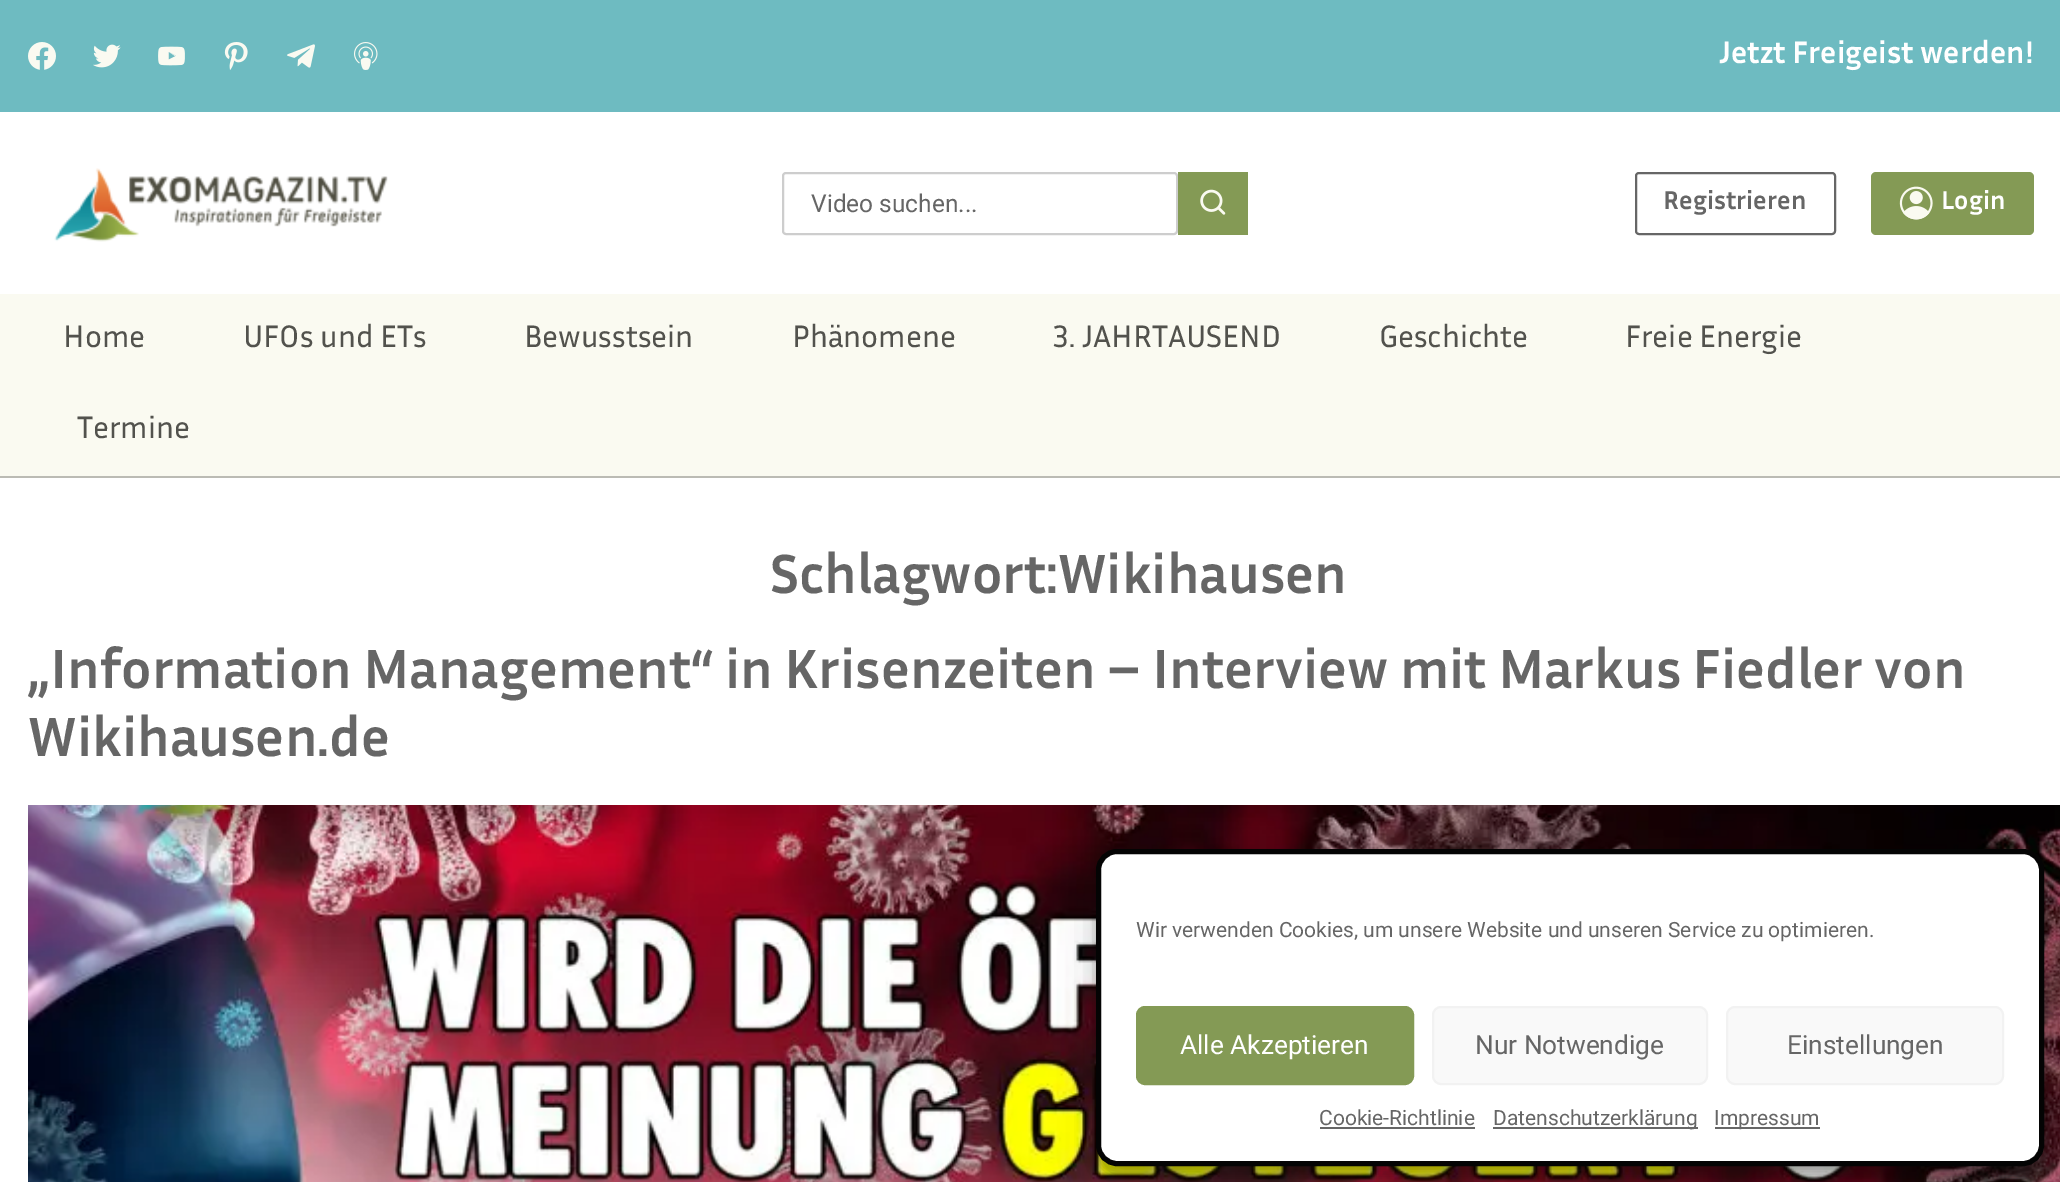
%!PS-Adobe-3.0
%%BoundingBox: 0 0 2060 1182
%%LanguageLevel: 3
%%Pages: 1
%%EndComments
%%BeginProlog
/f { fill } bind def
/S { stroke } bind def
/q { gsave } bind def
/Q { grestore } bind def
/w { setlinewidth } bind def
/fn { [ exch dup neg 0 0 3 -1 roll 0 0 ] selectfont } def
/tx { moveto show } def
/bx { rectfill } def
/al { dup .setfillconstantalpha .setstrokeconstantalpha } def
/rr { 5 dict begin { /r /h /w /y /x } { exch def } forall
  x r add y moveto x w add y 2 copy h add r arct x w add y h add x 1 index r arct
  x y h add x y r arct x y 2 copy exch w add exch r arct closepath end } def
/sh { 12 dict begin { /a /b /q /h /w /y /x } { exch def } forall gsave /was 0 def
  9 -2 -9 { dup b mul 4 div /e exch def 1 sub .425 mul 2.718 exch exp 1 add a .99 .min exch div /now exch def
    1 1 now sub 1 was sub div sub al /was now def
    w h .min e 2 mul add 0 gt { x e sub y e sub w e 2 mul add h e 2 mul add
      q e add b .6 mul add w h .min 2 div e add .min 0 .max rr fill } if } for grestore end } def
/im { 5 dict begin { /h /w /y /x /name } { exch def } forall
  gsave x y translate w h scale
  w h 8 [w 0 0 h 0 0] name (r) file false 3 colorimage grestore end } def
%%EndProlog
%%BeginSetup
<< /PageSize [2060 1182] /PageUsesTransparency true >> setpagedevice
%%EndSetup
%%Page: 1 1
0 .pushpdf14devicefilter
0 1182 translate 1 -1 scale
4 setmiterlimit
1 setgray
0 0 2060 1182 bx
0.431 0.733 0.757 setrgbcolor
0 0 2060 112 bx
(image0.raw) 28 42 28 28 im
(image1.raw) 93 44 28 24 im
(image2.raw) 158 46 27 20 im
(image3.raw) 224 42 24 28 im
(image4.raw) 287 44 28 24 im
(image5.raw) 354 42 24 28 im
/InriaSans-Bold 31.5 fn
1 setgray
(Jetzt Freigeist werden!) 1719 63 tx
(image6.raw) 54 168 334 74 im
0.804 setgray
2 w
783 173 394 61 3 rr S
/Roboto-Regular 24.5 fn
0.4 setgray
(Video suchen...) 811 212 tx
0.518 0.604 0.333 setrgbcolor
1178 172 70 63 bx
(image7.raw) 1200 189 26 26 im
0.4 setgray
1636 173 199 61 3 rr S
/InriaSans-Bold 26.25 fn
(Registrieren) 1663 209 tx
0.518 0.604 0.333 setrgbcolor
1871 172 163 63 5 rr f
(image8.raw) 1899 186 34 34 im
1 setgray
(Login) 1941 209 tx
0.98 0.98 0.945 setrgbcolor
0 294 2060 182 bx
0.733 0.733 0.706 setrgbcolor
0 476 2060 2 bx
/InriaSans-Regular 31.5 fn
0.322 0.322 0.302 setrgbcolor
(Home) 63 347 tx
(UFOs und ETs) 243 347 tx
(Bewusstsein) 524 347 tx
(Phänomene) 792 347 tx
(3. JAHRTAUSEND) 1053 347 tx
(Geschichte) 1379 347 tx
(Freie Energie) 1625 347 tx
(Termine) 77 438 tx
/InriaSans-Bold 56 fn
0.4 setgray
(Schlagwort:Wikihausen) 770 593 tx
(„Information Management“ in Krisenzeiten – Interview mit Markus Fiedler von) 28 688 tx
(Wikihausen.de) 28 756 tx
(image9.raw) 28 805 2032 377 im
0 setgray
1096 859 948 317 21 5 0.23 sh
1096 866 948 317 21 17.5 0.19 sh
1 setgray
1098.5 851.5 943 312 18.5 rr q f Q
0.016 setgray
5 w
S
/Roboto-Regular 21 fn
0.4 setgray
(Wir verwenden Cookies, um unsere Website und unseren Service zu optimieren.) 1136 937 tx
0.518 0.604 0.333 setrgbcolor
1137 1007 276 77 8 rr q f Q
2 w
S
/Roboto-Regular 26.25 fn
1 setgray
(Alle Akzeptieren) 1180 1054 tx
0.976 setgray
1433 1007 274 77 8 rr q f Q
0.949 setgray
S
0.4 setgray
(Nur Notwendige) 1475 1054 tx
0.976 setgray
1727 1007 276 77 8 rr q f Q
0.949 setgray
S
0.4 setgray
(Einstellungen) 1787 1054 tx
/Roboto-Regular 21 fn
(Cookie-Richtlinie) 1319 1125 tx
1320 1127 155 2 bx
1493 1127 205 2 bx
(Datenschutzerklärung) 1493 1125 tx
1715 1127 105 2 bx
(Impressum) 1714 1125 tx
.poppdf14devicefilter showpage
%%EOF
